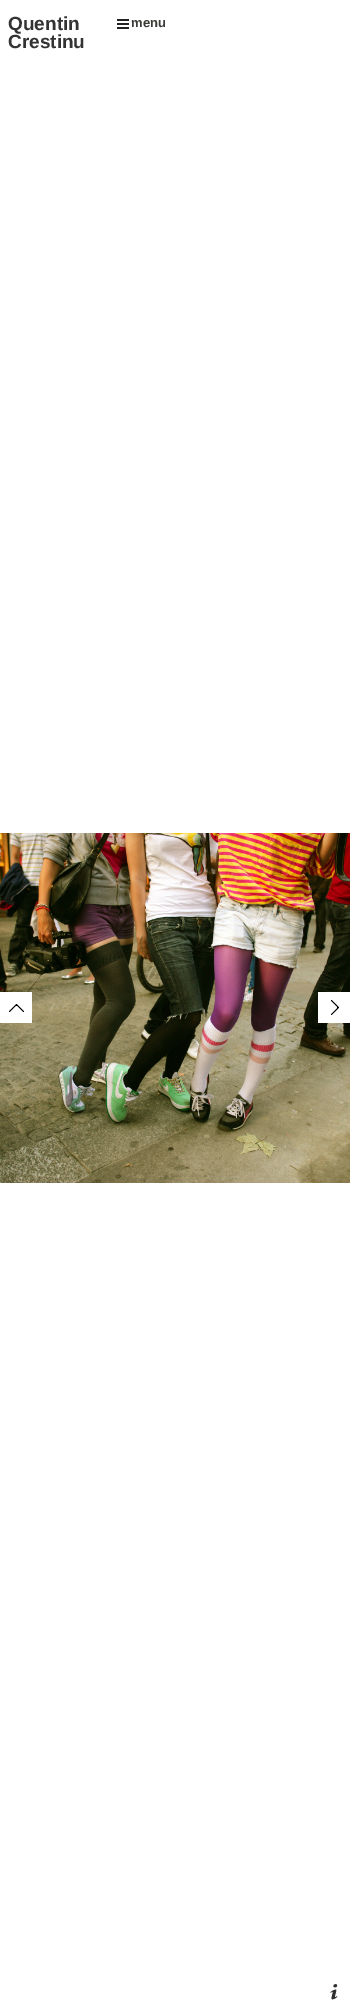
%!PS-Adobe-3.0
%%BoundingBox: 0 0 350 2016
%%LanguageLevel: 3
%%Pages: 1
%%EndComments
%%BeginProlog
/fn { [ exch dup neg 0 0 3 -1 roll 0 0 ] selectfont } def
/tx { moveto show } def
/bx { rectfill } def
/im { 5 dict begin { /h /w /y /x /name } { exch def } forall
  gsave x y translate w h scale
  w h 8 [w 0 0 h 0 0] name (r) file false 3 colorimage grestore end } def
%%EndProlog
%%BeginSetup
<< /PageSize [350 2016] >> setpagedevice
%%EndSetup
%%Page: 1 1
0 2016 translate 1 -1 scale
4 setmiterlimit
1 setgray
0 0 350 2016 bx
/LiberationSans-Bold 19 fn
0.2 setgray
(Quentin) 8 30 tx
(Crestinu) 8 48 tx
(image0.raw) 117 19 12 10 im
/LiberationSans-Bold 13 fn
0.231 0.227 0.216 setrgbcolor
(menu) 131 27 tx
(image1.raw) 0 833 350 350 im
1 setgray
0 992 32 31 bx
(image2.raw) 9 1004 15 8 im
318 992 32 31 bx
(image3.raw) 331 1000 8 15 im
(image4.raw) 330 1984 8 16 im
showpage
%%EOF
